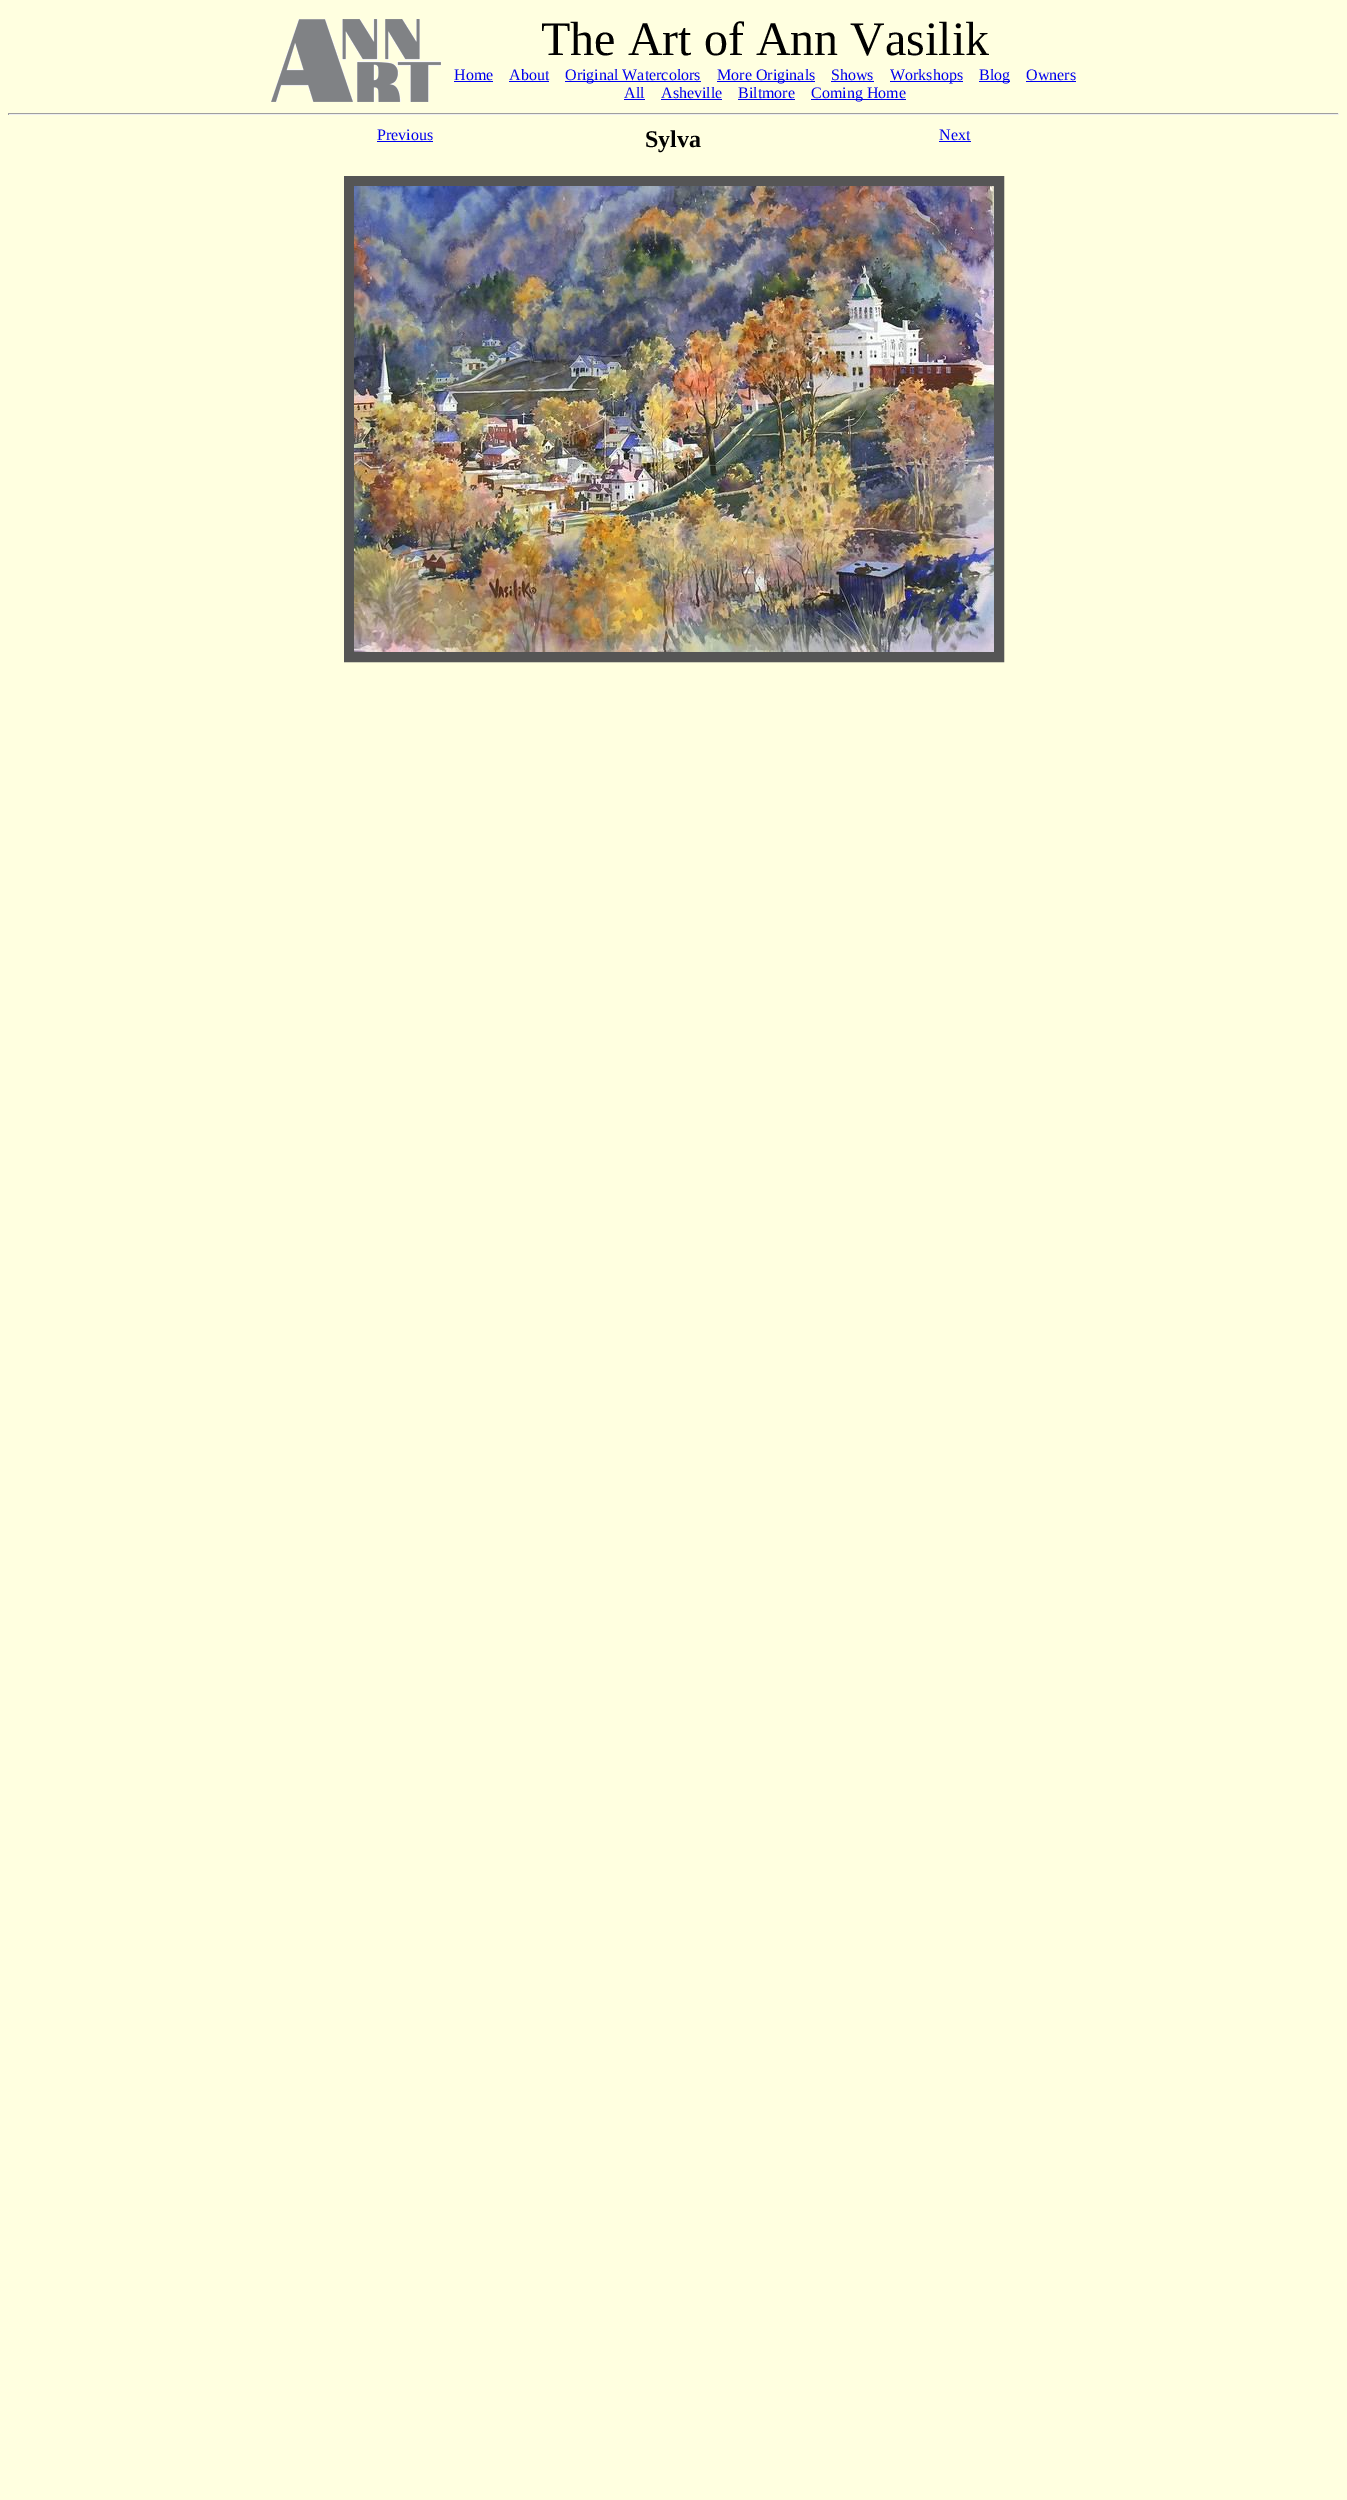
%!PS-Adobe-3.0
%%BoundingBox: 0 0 1347 2500
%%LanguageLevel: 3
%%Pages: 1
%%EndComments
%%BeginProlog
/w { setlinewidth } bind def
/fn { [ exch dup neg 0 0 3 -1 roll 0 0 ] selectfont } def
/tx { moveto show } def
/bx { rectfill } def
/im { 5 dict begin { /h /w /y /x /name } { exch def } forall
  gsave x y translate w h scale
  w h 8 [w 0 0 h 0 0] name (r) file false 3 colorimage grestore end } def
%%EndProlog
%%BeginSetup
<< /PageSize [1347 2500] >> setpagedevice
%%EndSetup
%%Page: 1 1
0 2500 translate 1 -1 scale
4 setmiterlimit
1 1 0.878 setrgbcolor
0 0 1347 2500 bx
(image0.raw) 271 19 170 83 im
/LiberationSerif-Regular 48 fn
0 setgray
(The Art of Ann Vasilik) 541 55 tx
/LiberationSerif-Regular 16 fn
0 0 0.933 setrgbcolor
(Home) 454 80 tx
454 81 39 1 bx
(About) 509 80 tx
509 81 40 1 bx
565 81 136 1 bx
(Original Watercolors) 565 80 tx
717 81 98 1 bx
(More Originals) 717 80 tx
(Shows) 831 80 tx
831 81 43 1 bx
890 81 73 1 bx
(Workshops) 890 80 tx
979 81 31 1 bx
(Blog) 979 80 tx
(Owners) 1026 80 tx
1026 81 50 1 bx
(All) 624 98 tx
624 99 21 1 bx
(Asheville) 661 98 tx
661 99 61 1 bx
(Biltmore) 738 98 tx
738 99 57 1 bx
811 99 95 1 bx
(Coming Home) 811 98 tx
0.624 setgray
8 113 1331 1 bx
0.933 setgray
1338 113 1 2 bx
8 114 1331 1 bx
0.624 setgray
8 113 1 2 bx
0 0 0.933 setrgbcolor
(Previous) 377 140 tx
377 141 56 1 bx
/LiberationSerif-Bold 24 fn
0 setgray
(Sylva) 645 147 tx
/LiberationSerif-Regular 16 fn
0 0 0.933 setrgbcolor
(Next) 939 140 tx
939 141 32 1 bx
0.333 setgray
10 w
349 181 650 476 rectstroke
(image1.raw) 354 186 640 466 im
showpage
%%EOF
